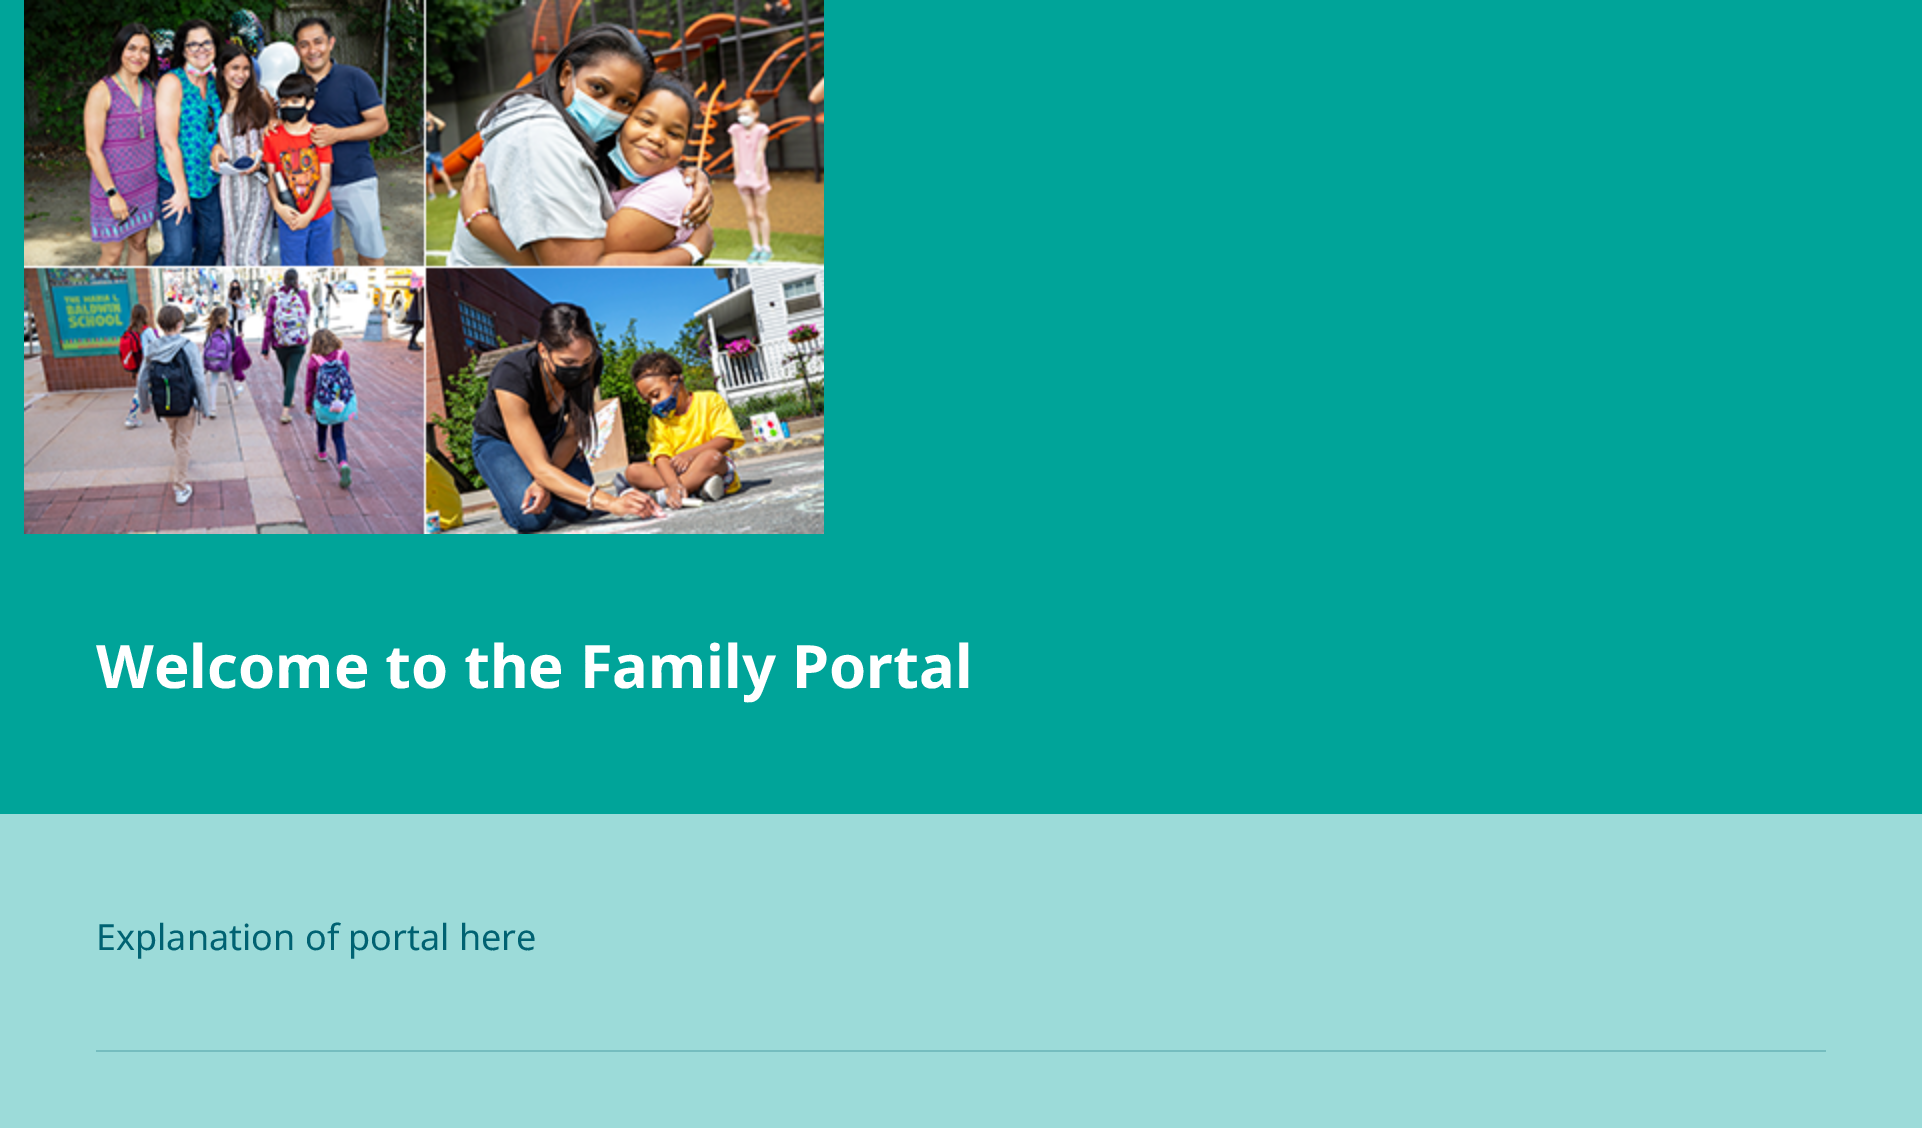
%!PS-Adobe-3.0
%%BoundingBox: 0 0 1922 1128
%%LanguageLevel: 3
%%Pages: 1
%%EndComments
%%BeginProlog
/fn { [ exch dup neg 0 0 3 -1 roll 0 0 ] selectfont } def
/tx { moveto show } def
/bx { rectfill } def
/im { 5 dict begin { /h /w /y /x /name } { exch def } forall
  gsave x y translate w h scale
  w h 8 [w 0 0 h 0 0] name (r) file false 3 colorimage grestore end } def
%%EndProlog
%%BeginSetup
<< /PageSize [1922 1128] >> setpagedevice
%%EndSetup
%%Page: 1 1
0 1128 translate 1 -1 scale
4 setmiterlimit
0 0.643 0.6 setrgbcolor
0 0 1922 1128 bx
(image0.raw) 24 0 800 534 im
/NotoSans-Bold 59.75 fn
1 setgray
(Welcome to the Family Portal) 96 688 tx
0.612 0.859 0.851 setrgbcolor
0 814 1922 314 bx
/NotoSans-Regular 36 fn
0 0.384 0.447 setrgbcolor
(Explanation of portal here) 96 950 tx
0.459 0.741 0.749 setrgbcolor
96 1050 1730 2 bx
showpage
%%EOF
